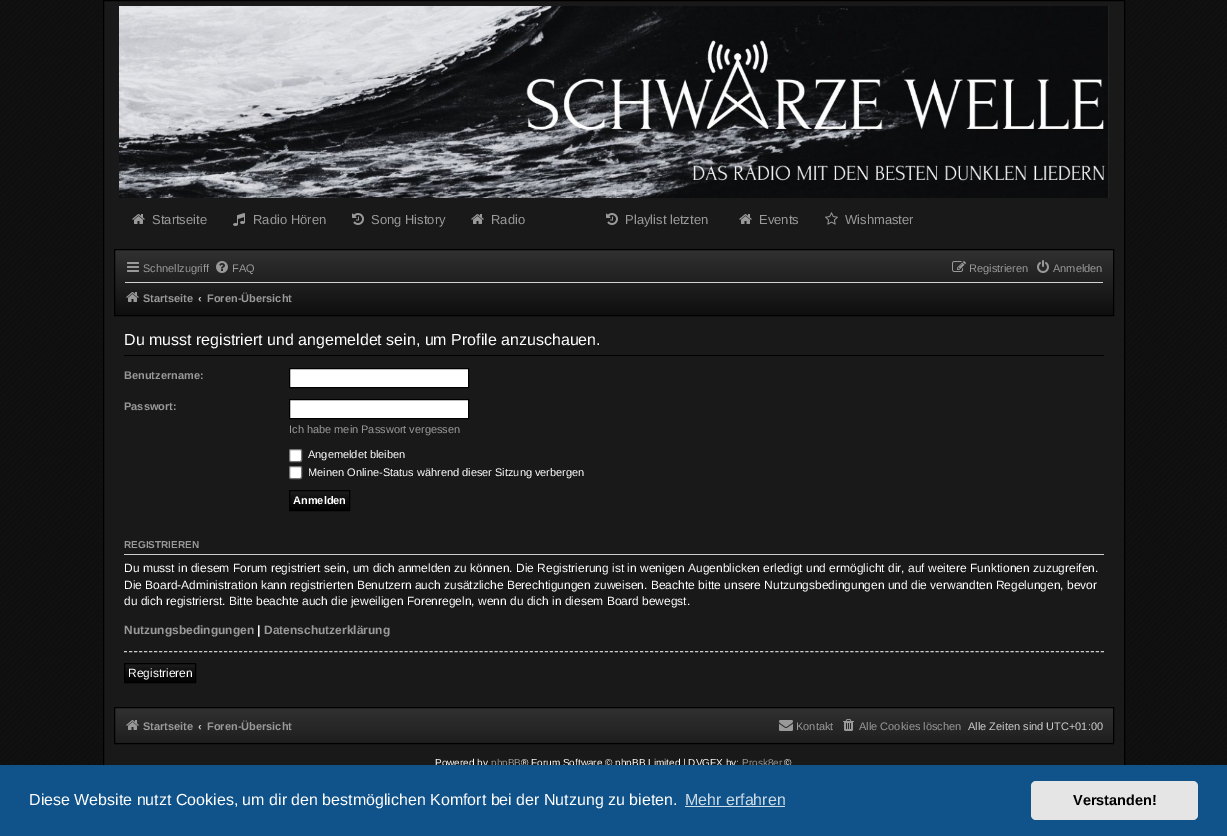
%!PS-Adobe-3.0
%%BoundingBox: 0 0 1227 836
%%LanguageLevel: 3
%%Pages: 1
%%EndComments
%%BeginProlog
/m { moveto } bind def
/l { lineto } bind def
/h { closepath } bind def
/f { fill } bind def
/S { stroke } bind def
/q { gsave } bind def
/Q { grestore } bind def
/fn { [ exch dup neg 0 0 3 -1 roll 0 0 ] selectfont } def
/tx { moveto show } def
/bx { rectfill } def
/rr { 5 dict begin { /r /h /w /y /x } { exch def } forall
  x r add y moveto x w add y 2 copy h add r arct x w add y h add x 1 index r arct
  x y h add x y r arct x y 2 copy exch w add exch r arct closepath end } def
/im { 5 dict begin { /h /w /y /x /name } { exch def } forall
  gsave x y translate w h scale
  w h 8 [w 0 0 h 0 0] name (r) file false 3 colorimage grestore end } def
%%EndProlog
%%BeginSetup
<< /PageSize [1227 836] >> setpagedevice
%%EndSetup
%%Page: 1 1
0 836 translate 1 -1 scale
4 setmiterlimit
1 setgray
0 0 1227 836 bx
(image0.raw) 0 0 1227 765 im
0.098 setgray
104 1 1020 764 bx
0 setgray
103.5 0.5 1021 823 rectstroke
(image1.raw) 119 6 990 192 im
(image2.raw) 132 214 13 10 im
/LiberationSans-Regular 13 fn
0.6 setgray
(Startseite) 152 224 tx
(image3.raw) 233 213 12 13 im
(Radio Hören) 253 224 tx
(image4.raw) 352 213 12 12 im
(Song History) 371 224 tx
(image2.raw) 471 214 13 10 im
(Radio) 491 224 tx
(image4.raw) 606 213 12 12 im
(Playlist letzten) 625 224 tx
(image2.raw) 739 214 13 10 im
(Events) 759 224 tx
(image5.raw) 825 212 13 13 im
(Wishmaster) 845 224 tx
q 115 250 m 1113 250 l 1113 315 l 115 315 l h clip newpath
<< /ShadingType 2 /ColorSpace /DeviceRGB /Coords [614 250 614 342] /Extend [true true] /Function << /FunctionType 3 /Domain [0 1] /Functions [<< /FunctionType 2 /Domain [0 1] /C0 [0.188 0.188 0.188] /C1 [0.188 0.188 0.188] /N 1 >> << /FunctionType 2 /Domain [0 1] /C0 [0.188 0.188 0.188] /C1 [0 0 0] /N 1 >>] /Bounds [0.02] /Encode [0 1 0 1] >> >> shfill Q
0 setgray
114.5 249.5 999 66 rectstroke
(image6.raw) 127 262 12 10 im
/LiberationSans-Regular 11 fn
0.6 setgray
(Schnellzugriff) 143 272 tx
(image7.raw) 216 261 12 12 im
(FAQ) 232 272 tx
(image8.raw) 952 261 14 11 im
(Registrieren) 969 272 tx
(image9.raw) 1037 260 12 13 im
(Anmelden) 1053 272 tx
0.824 setgray
125 282 978 1 bx
(image10.raw) 126 292 13 10 im
/LiberationSans-Bold 11 fn
0.6 setgray
(Startseite) 143 302 tx
0.8 setgray
(‹) 198 302 tx
0.6 setgray
(Foren-Übersicht) 207 302 tx
0 setgray
124 355 980 1 bx
/LiberationSans-Regular 16 fn
1 setgray
(Du musst registriert und angemeldet sein, um Profile anzuschauen.) 124 345 tx
/LiberationSans-Bold 11 fn
0.6 setgray
(Benutzername:) 124 379 tx
1 setgray
289.5 368.5 m 468.5 368.5 l 468.5 387.5 l 289.5 387.5 l h q f Q
0 setgray
S
0.6 setgray
(Passwort:) 124 410 tx
1 setgray
289.5 399.5 m 468.5 399.5 l 468.5 418.5 l 289.5 418.5 l h q f Q
0 setgray
S
/LiberationSans-Regular 11 fn
0.6 setgray
(Ich habe mein Passwort vergessen) 289 433 tx
1 setgray
289.5 449.5 12 12 1.5 rr q f Q
0.463 setgray
S
1 setgray
(Angemeldet bleiben) 308 458 tx
289.5 466.5 12 12 1.5 rr q f Q
0.463 setgray
S
1 setgray
(Meinen Online-Status während dieser Sitzung verbergen) 308 476 tx
q 290 494 m 349 494 l 349 510 l 290 510 l h clip newpath
<< /ShadingType 2 /ColorSpace /DeviceRGB /Coords [320 491 320 510] /Extend [true true] /Function << /FunctionType 2 /Domain [0 1] /C0 [0.102 0.102 0.102] /C1 [0.008 0.008 0.008] /N 1 >> >> shfill Q
0 setgray
289.5 490.5 60 20 rectstroke
/LiberationSans-Bold 11 fn
1 setgray
(Anmelden) 293 504 tx
0.8 setgray
124 554 980 1 bx
/LiberationSans-Bold 10 fn
0.6 setgray
(REGISTRIEREN) 124 548 tx
/LiberationSans-Regular 12 fn
1 setgray
(Du musst in diesem Forum registriert sein, um dich anmelden zu können. Die Registrierung ist in wenigen Augenblicken erledigt und ermöglicht dir, auf weitere Funktionen zuzugreifen.) 124 572 tx
(Die Board-Administration kann registrierten Benutzern auch zusätzliche Berechtigungen zuweisen. Beachte bitte unsere Nutzungsbedingungen und die verwandten Regelungen, bevor) 124 589 tx
(du dich registrierst. Bitte beachte auch die jeweiligen Forenregeln, wenn du dich in diesem Board bewegst.) 124 605 tx
/LiberationSans-Bold 12 fn
0.6 setgray
(Nutzungsbedingungen) 124 634 tx
1 setgray
(|) 257 634 tx
0.6 setgray
(Datenschutzerklärung) 264 634 tx
0.8 setgray
[3 2.01] 0 setdash
124 651.5 m 1104 651.5 l S
q 125 667 m 195 667 l 195 682 l 125 682 l h clip newpath
<< /ShadingType 2 /ColorSpace /DeviceRGB /Coords [160 664 160 682] /Extend [true true] /Function << /FunctionType 2 /Domain [0 1] /C0 [0.102 0.102 0.102] /C1 [0.008 0.008 0.008] /N 1 >> >> shfill Q
0 setgray
[] 0 setdash
124.5 663.5 71 19 rectstroke
/LiberationSans-Regular 12 fn
1 setgray
(Registrieren) 128 677 tx
q 115 708 m 1113 708 l 1113 743 l 115 743 l h clip newpath
<< /ShadingType 2 /ColorSpace /DeviceRGB /Coords [614 708 614 800] /Extend [true true] /Function << /FunctionType 3 /Domain [0 1] /Functions [<< /FunctionType 2 /Domain [0 1] /C0 [0.188 0.188 0.188] /C1 [0.188 0.188 0.188] /N 1 >> << /FunctionType 2 /Domain [0 1] /C0 [0.188 0.188 0.188] /C1 [0 0 0] /N 1 >>] /Bounds [0.02] /Encode [0 1 0 1] >> >> shfill Q
0 setgray
114.5 707.5 999 36 rectstroke
(image11.raw) 126 720 13 10 im
/LiberationSans-Bold 11 fn
0.6 setgray
(Startseite) 143 730 tx
0.8 setgray
(‹) 198 730 tx
0.6 setgray
(Foren-Übersicht) 207 730 tx
(image12.raw) 779 720 14 11 im
/LiberationSans-Regular 11 fn
(Kontakt) 796 730 tx
(image13.raw) 843 719 11 12 im
(Alle Cookies löschen) 859 730 tx
0.8 setgray
(Alle Zeiten sind UTC+01:00) 968 730 tx
/LiberationSans-Regular 10 fn
1 setgray
(Powered by) 435 766 tx
0.6 setgray
(phpBB) 491 766 tx
1 setgray
(® Forum Software © phpBB Limited | DVGFX by:) 521 766 tx
0.6 setgray
(Prosk8er) 742 766 tx
1 setgray
(©) 784 766 tx
0.059 0.325 0.541 setrgbcolor
0 765 1227 71 bx
/LiberationSans-Regular 16 fn
1 setgray
(Diese Website nutzt Cookies, um dir den bestmöglichen Komfort bei der Nutzung zu bieten.) 29 805 tx
0.812 0.867 0.91 setrgbcolor
(Mehr erfahren) 685 805 tx
685 806 100 1 bx
0.898 setgray
1031 781 167 39 5 rr f
/LiberationSans-Bold 14.5 fn
0 setgray
(Verstanden!) 1073 805 tx
showpage
%%EOF
